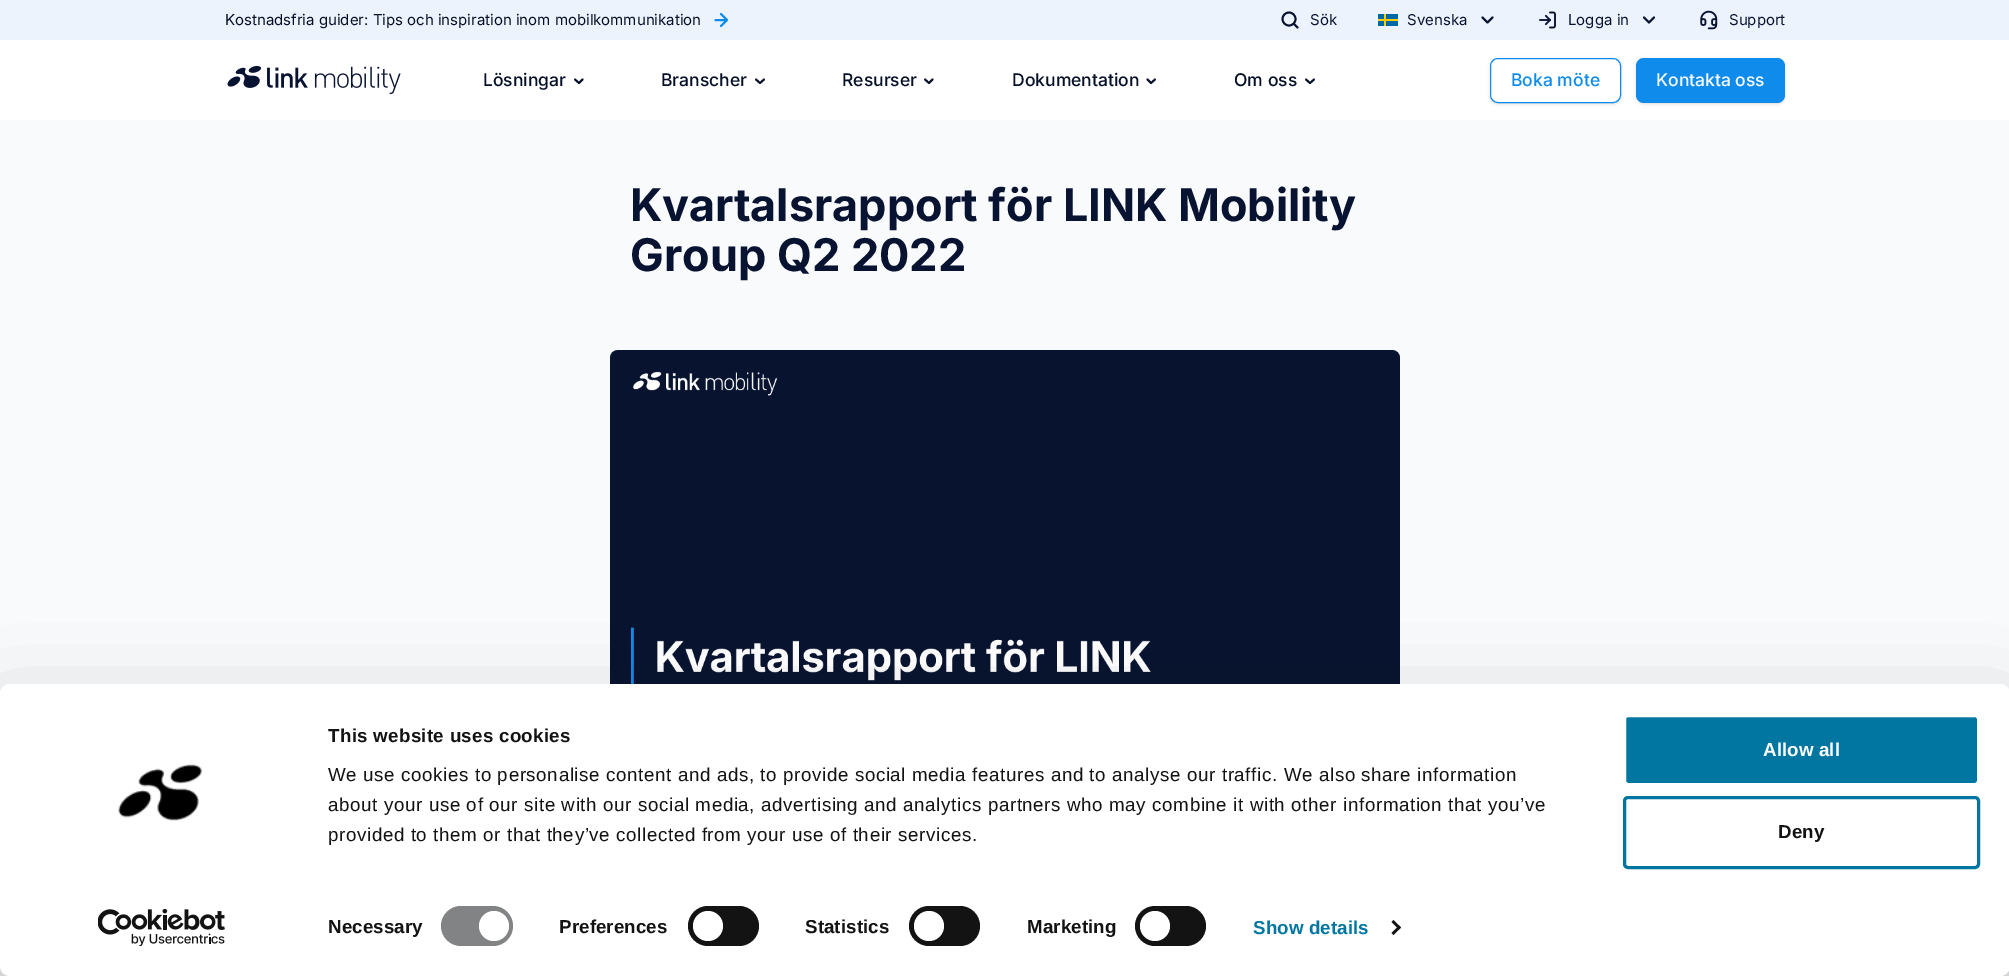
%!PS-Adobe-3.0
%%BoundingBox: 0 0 2009 976
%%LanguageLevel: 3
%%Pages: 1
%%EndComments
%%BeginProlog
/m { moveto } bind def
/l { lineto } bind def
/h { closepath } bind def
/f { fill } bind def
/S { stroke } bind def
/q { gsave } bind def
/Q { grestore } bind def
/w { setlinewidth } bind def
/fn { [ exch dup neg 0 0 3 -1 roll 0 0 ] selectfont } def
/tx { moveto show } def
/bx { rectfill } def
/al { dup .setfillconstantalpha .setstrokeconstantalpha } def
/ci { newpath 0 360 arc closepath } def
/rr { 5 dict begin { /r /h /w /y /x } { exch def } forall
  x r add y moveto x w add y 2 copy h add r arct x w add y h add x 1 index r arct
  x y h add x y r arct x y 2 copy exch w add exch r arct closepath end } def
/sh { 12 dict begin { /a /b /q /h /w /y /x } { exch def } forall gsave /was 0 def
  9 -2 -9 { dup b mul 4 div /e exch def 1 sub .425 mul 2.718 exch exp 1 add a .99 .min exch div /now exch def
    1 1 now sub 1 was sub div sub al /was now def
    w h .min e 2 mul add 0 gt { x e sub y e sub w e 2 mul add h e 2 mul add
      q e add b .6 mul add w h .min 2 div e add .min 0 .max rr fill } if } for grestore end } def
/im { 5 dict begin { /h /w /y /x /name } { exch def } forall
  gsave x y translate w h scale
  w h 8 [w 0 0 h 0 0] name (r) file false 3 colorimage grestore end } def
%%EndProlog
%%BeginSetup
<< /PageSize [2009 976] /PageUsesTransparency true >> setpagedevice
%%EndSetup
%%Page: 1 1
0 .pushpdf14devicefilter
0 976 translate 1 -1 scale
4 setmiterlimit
1 setgray
0 0 2009 976 bx
0.925 0.953 0.988 setrgbcolor
0 0 2009 40 bx
/Inter-Regular 15 fn
0.024 0.059 0.157 setrgbcolor
(Kostnadsfria guider: Tips och inspiration inom mobilkommunikation) 225 25 tx
0.059 0.549 0.922 setrgbcolor
1.9 w
1 setlinecap
1 setlinejoin
715.5 20 m 727 20 l 721 14 m 727 20 l 721 26 l S
0.031 0.075 0.196 setrgbcolor
0 setlinecap
0 setlinejoin
1289 19 6.5 ci S
1 setlinecap
1 setlinejoin
1297.5 27.5 m 1294 24 l S
(Sök) 1310 25 tx
0 0.416 0.655 setrgbcolor
1378 14 20 12 bx
0.996 0.8 0 setrgbcolor
1384 14 2 12 bx
1378 19 20 2 bx
0.031 0.075 0.196 setrgbcolor
(Svenska) 1407 25 tx
1482.5 17.5 m 1487.5 22.5 l 1492.5 17.5 l S
(image0.raw) 1539 11 17 18 im
(Logga in) 1568 25 tx
1644 17.5 m 1649 22.5 l 1654 17.5 l S
(image1.raw) 1700 10 18 20 im
(Support) 1729 25 tx
(image2.raw) 227 66 174 29 im
/Inter-Medium 17.5 fn
0.024 0.059 0.157 setrgbcolor
(Lösningar) 483 86 tx
575 79.5 m 579 83 l 582.5 79.5 l S
(Branscher) 661 86 tx
756 79.5 m 760 83 l 764 79.5 l S
(Resurser) 842 86 tx
925 79.5 m 929 83 l 932.5 79.5 l S
(Dokumentation) 1012 86 tx
1147.5 79.5 m 1151 83 l 1155 79.5 l S
(Om oss) 1234 86 tx
1306 79.5 m 1310 83 l 1314 79.5 l S
0 setgray
1491 60 129 43 6 1 0.1 sh
1490 59 131 45 8 2 0.1 sh
1 setgray
1490.5 58.5 130 44 7.5 rr q f Q
0.059 0.549 0.922 setrgbcolor
1 w
0 setlinecap
0 setlinejoin
S
(Boka möte) 1511 86 tx
0 setgray
1638 60 146 43 6 1 0.1 sh
1636 59 149 45 8 2 0.1 sh
0.059 0.549 0.922 setrgbcolor
1636 58 149 45 8 rr f
0.973 0.98 0.988 setrgbcolor
(Kontakta oss) 1656 86 tx
0.976 0.98 0.984 setrgbcolor
0 120 2009 856 bx
/Inter-Bold 45 fn
0.031 0.075 0.196 setrgbcolor
(Kvartalsrapport för LINK Mobility) 630 221 tx
(Group Q2 2022) 630 271 tx
(image3.raw) 610 350 790 334 im
0 setgray
0 721 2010 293 10 44 0.3 sh
1 setgray
0 684 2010 292 10 rr f
(image4.raw) 118 764 85 57 im
(image5.raw) 98 909 127 37 im
/LiberationSans-Bold 18.75 fn
0.078 0.075 0.075 setrgbcolor
328 742 m 0.3 0 (This website uses cookies) ashow
/LiberationSans-Regular 18.75 fn
328 781 m 0.62 0 (We use cookies to personalise content and ads, to provide social media features and to analyse our traffic. We also share information) ashow
328 811 m 0.62 0 (about your use of our site with our social media, advertising and analytics partners who may combine it with other information that you’ve) ashow
328 841 m 0.62 0 (provided to them or that they’ve collected from your use of their services.) ashow
/LiberationSans-Bold 18.75 fn
328 933 m 0.1 0 (Necessary) ashow
0.51 0.514 0.518 setrgbcolor
441 906 72 40 20 rr f
1 setgray
494 926 15 ci f
0.078 0.075 0.075 setrgbcolor
559 933 m 0.1 0 (Preferences) ashow
688 906 71 40 20 rr f
1 setgray
708 926 15 ci f
0.078 0.075 0.075 setrgbcolor
805 933 m 0.1 0 (Statistics) ashow
909 906 71 40 20 rr f
1 setgray
929 926 15 ci f
0.078 0.075 0.075 setrgbcolor
1027 933 m 0.1 0 (Marketing) ashow
1135 906 71 40 20 rr f
1 setgray
1155 926 15 ci f
0 0.463 0.631 setrgbcolor
1253 934 m 0.1 0 (Show details) ashow
0.078 0.075 0.075 setrgbcolor
1393.5 920 m 1401 927.5 l 1399 929.5 l 1391.5 922 l h f
1399 925.5 m 1401 927.5 l 1393.5 935 l 1391.5 933 l h f
0 0.463 0.631 setrgbcolor
1624.5 715.5 354 69 3.5 rr q f Q
1 setgray
3 w
S
1763 756 m 0.1 0 (Allow all) ashow
0 0.463 0.631 setrgbcolor
1624.5 797.5 354 70 3.5 rr S
0.078 0.075 0.075 setrgbcolor
1778 838 m 0.1 0 (Deny) ashow
.poppdf14devicefilter showpage
%%EOF
